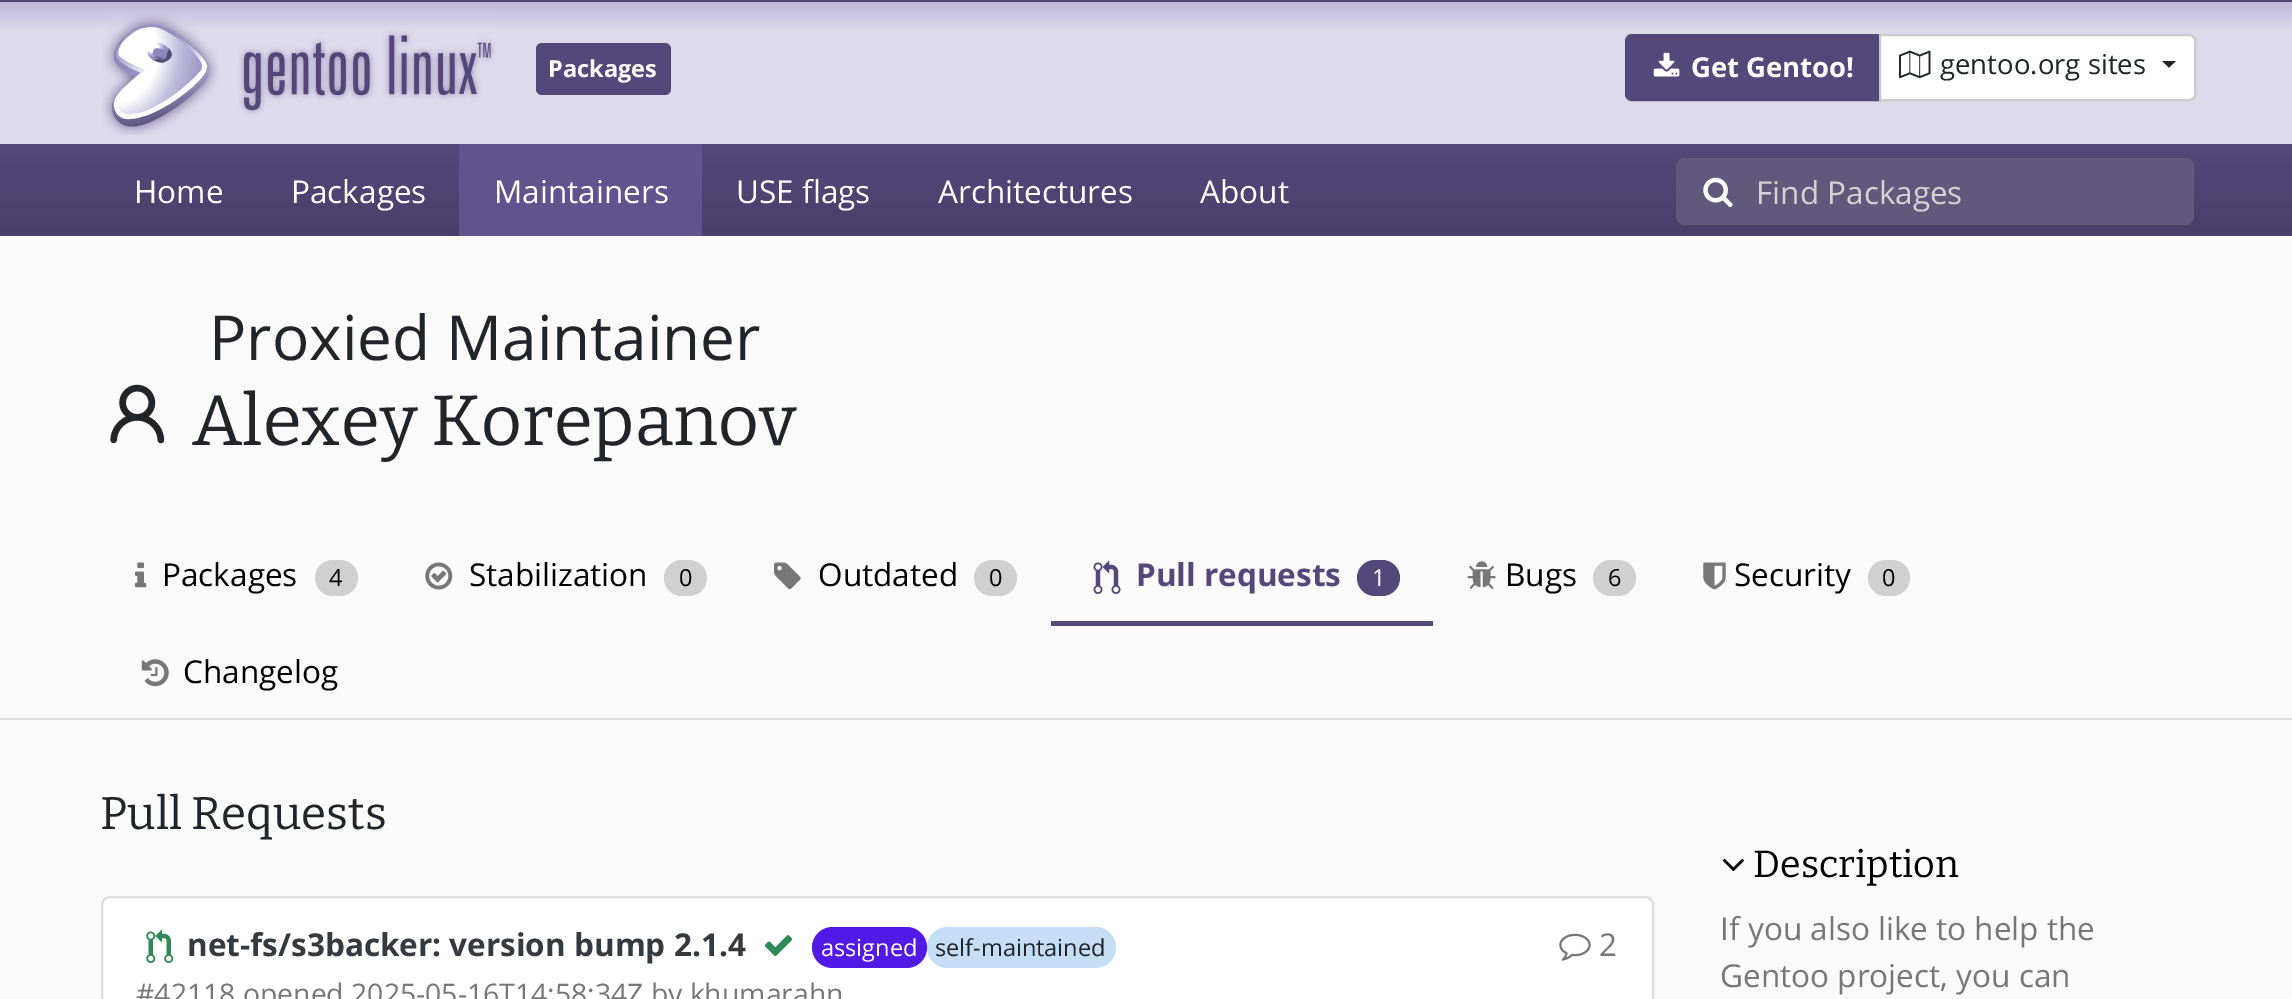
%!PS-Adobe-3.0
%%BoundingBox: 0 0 2292 999
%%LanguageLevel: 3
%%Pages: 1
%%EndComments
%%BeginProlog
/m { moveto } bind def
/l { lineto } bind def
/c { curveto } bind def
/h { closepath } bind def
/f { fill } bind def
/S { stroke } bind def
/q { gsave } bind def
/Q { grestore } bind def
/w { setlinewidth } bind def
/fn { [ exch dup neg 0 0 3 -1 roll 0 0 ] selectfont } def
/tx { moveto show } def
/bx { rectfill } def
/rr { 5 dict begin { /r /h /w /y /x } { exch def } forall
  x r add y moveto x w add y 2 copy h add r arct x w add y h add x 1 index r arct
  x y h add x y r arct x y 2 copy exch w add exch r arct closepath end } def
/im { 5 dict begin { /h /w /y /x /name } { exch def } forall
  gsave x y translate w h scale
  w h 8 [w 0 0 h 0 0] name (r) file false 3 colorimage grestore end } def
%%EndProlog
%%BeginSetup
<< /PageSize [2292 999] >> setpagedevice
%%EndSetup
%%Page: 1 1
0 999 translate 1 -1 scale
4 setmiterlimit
0.98 setgray
0 0 2292 999 bx
0.329 0.282 0.478 setrgbcolor
0 0 2292 2 bx
q 0 2 m 2292 2 l 2292 144 l 0 144 l h clip newpath
<< /ShadingType 2 /ColorSpace /DeviceRGB /Coords [1146 2.2 1146 144] /Extend [true true] /Function << /FunctionType 3 /Domain [0 1] /Functions [<< /FunctionType 2 /Domain [0 1] /C0 [0.745 0.722 0.859] /C1 [0.867 0.855 0.925] /N 1 >> << /FunctionType 2 /Domain [0 1] /C0 [0.867 0.855 0.925] /C1 [0.867 0.855 0.925] /N 1 >>] /Bounds [0.2] /Encode [0 1 0 1] >> >> shfill Q
(image0.raw) 102 14 394 121 im
536 43 135 52 6 rr f
/OpenSans-Bold 23.5 fn
1 setgray
(Packages) 548 77 tx
0.329 0.282 0.478 setrgbcolor
1632 35 m 1880 35 l 1880 100 l 1632 100 l 1628.5 100 1626 97.5 1626 94 c 1626 41 l 1626 37.5 1628.5 35 1632 35 c h q f Q
2 w
S
(image1.raw) 1653 52 27 25 im
/OpenSans-Bold 27.5 fn
1 setgray
(Get Gentoo!) 1691 77 tx
1880 35 m 2189 35 l 2192.5 35 2195 37.5 2195 41 c 2195 94 l 2195 97.5 2192.5 100 2189 100 c 1880 100 l h q f Q
0.8 setgray
S
(image2.raw) 1899 50 32 29 im
/OpenSans-Regular 27.5 fn
0.129 0.145 0.161 setrgbcolor
(gentoo.org sites) 1940 74 tx
2162 61 m 2176 61 l 2169 67.5 l h f
q 0 144 m 2292 144 l 2292 236 l 0 236 l h clip newpath
<< /ShadingType 2 /ColorSpace /DeviceRGB /Coords [1146 144 1146 236] /Extend [true true] /Function << /FunctionType 2 /Domain [0 1] /C0 [0.329 0.282 0.478] /C1 [0.286 0.247 0.416] /N 1 >> >> shfill Q
/OpenSans-Regular 31.5 fn
1 setgray
(Home) 134 203 tx
(Packages) 291 203 tx
0.38 0.325 0.553 setrgbcolor
459 144 243 92 bx
1 setgray
(Maintainers) 494 203 tx
(USE flags) 736 203 tx
(Architectures) 938 203 tx
(About) 1200 203 tx
0.38 0.349 0.482 setrgbcolor
1685 158 m 1760 158 l 1760 225 l 1685 225 l 1680 225 1676 221 1676 216 c 1676 167 l 1676 162 1680 158 1685 158 c h f
(image3.raw) 1703 177 30 30 im
1757 158 m 2185 158 l 2190 158 2194 162 2194 167 c 2194 216 l 2194 221 2190 225 2185 225 c 1757 225 l h f
0.827 setgray
(Find Packages) 1756 204 tx
/OpenSans-Regular 62 fn
0.129 0.145 0.161 setrgbcolor
(Proxied Maintainer) 209 360 tx
(image4.raw) 110 384 55 60 im
/Bitter-Regular 70.9 fn
(Alexey Korepanov) 192 445 tx
(image5.raw) 135 562 12 26 im
/OpenSans-Regular 31.5 fn
0 setgray
(Packages) 162 586 tx
0.816 setgray
315 560 43 36 18 rr f
/OpenSans-Regular 23.5 fn
0 setgray
(4) 329 586 tx
(image6.raw) 425 562 28 28 im
/OpenSans-Regular 31.5 fn
(Stabilization) 469 586 tx
0.816 setgray
664 560 43 36 18 rr f
/OpenSans-Regular 23.5 fn
0 setgray
(0) 679 586 tx
(image7.raw) 774 562 27 28 im
/OpenSans-Regular 31.5 fn
(Outdated) 818 586 tx
0.816 setgray
974 560 43 36 18 rr f
/OpenSans-Regular 23.5 fn
0 setgray
(0) 989 586 tx
0.329 0.282 0.478 setrgbcolor
1051 621 382 5 bx
(image8.raw) 1093 560 28 34 im
/OpenSans-Bold 31.5 fn
(Pull requests) 1136 586 tx
1357 560 43 36 18 rr f
/OpenSans-Regular 23.5 fn
1 setgray
(1) 1372 586 tx
(image9.raw) 1467 561 29 28 im
/OpenSans-Regular 31.5 fn
0 setgray
(Bugs) 1505 586 tx
0.816 setgray
1593 560 43 36 18 rr f
/OpenSans-Regular 23.5 fn
0 setgray
(6) 1608 586 tx
(image10.raw) 1703 562 23 28 im
/OpenSans-Regular 31.5 fn
(Security) 1734 586 tx
0.816 setgray
1868 560 42 36 18 rr f
/OpenSans-Regular 23.5 fn
0 setgray
(0) 1882 586 tx
(image11.raw) 141 659 28 28 im
/OpenSans-Regular 31.5 fn
(Changelog) 183 683 tx
0.867 setgray
0 718 2292 2 bx
/Bitter-Regular 45.75 fn
0.129 0.145 0.161 setrgbcolor
(Pull Requests) 100 829 tx
1 setgray
102 897 1551 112 8 rr q f Q
0.875 setgray
S
(image12.raw) 146 929 28 34 im
/OpenSans-Bold 31.5 fn
0.204 0.227 0.251 setrgbcolor
(net-fs/s3backer: version bump 2.1.4) 187 956 tx
(image13.raw) 764 935 29 21 im
0.325 0.098 0.906 setrgbcolor
812 927 115 41 20.5 rr f
/OpenSans-Regular 23.5 fn
1 setgray
(assigned) 821 956 tx
0.773 0.871 0.961 setrgbcolor
927 927 189 41 20.5 rr f
0.129 0.145 0.161 setrgbcolor
(self-maintained) 935 956 tx
(image14.raw) 1559 933 32 28 im
/OpenSans-Regular 31.5 fn
0.467 setgray
(2) 1599 956 tx
/OpenSans-Regular 28.35 fn
(#42118 opened 2025-05-16T14:58:34Z by khumarahn) 136 1004 tx
(image15.raw) 1722 858 22 14 im
/Bitter-Regular 37.75 fn
0 setgray
(Description) 1753 877 tx
/OpenSans-Regular 31.5 fn
0.467 setgray
(If you also like to help the) 1720 940 tx
(Gentoo project, you can) 1720 987 tx
showpage
%%EOF
